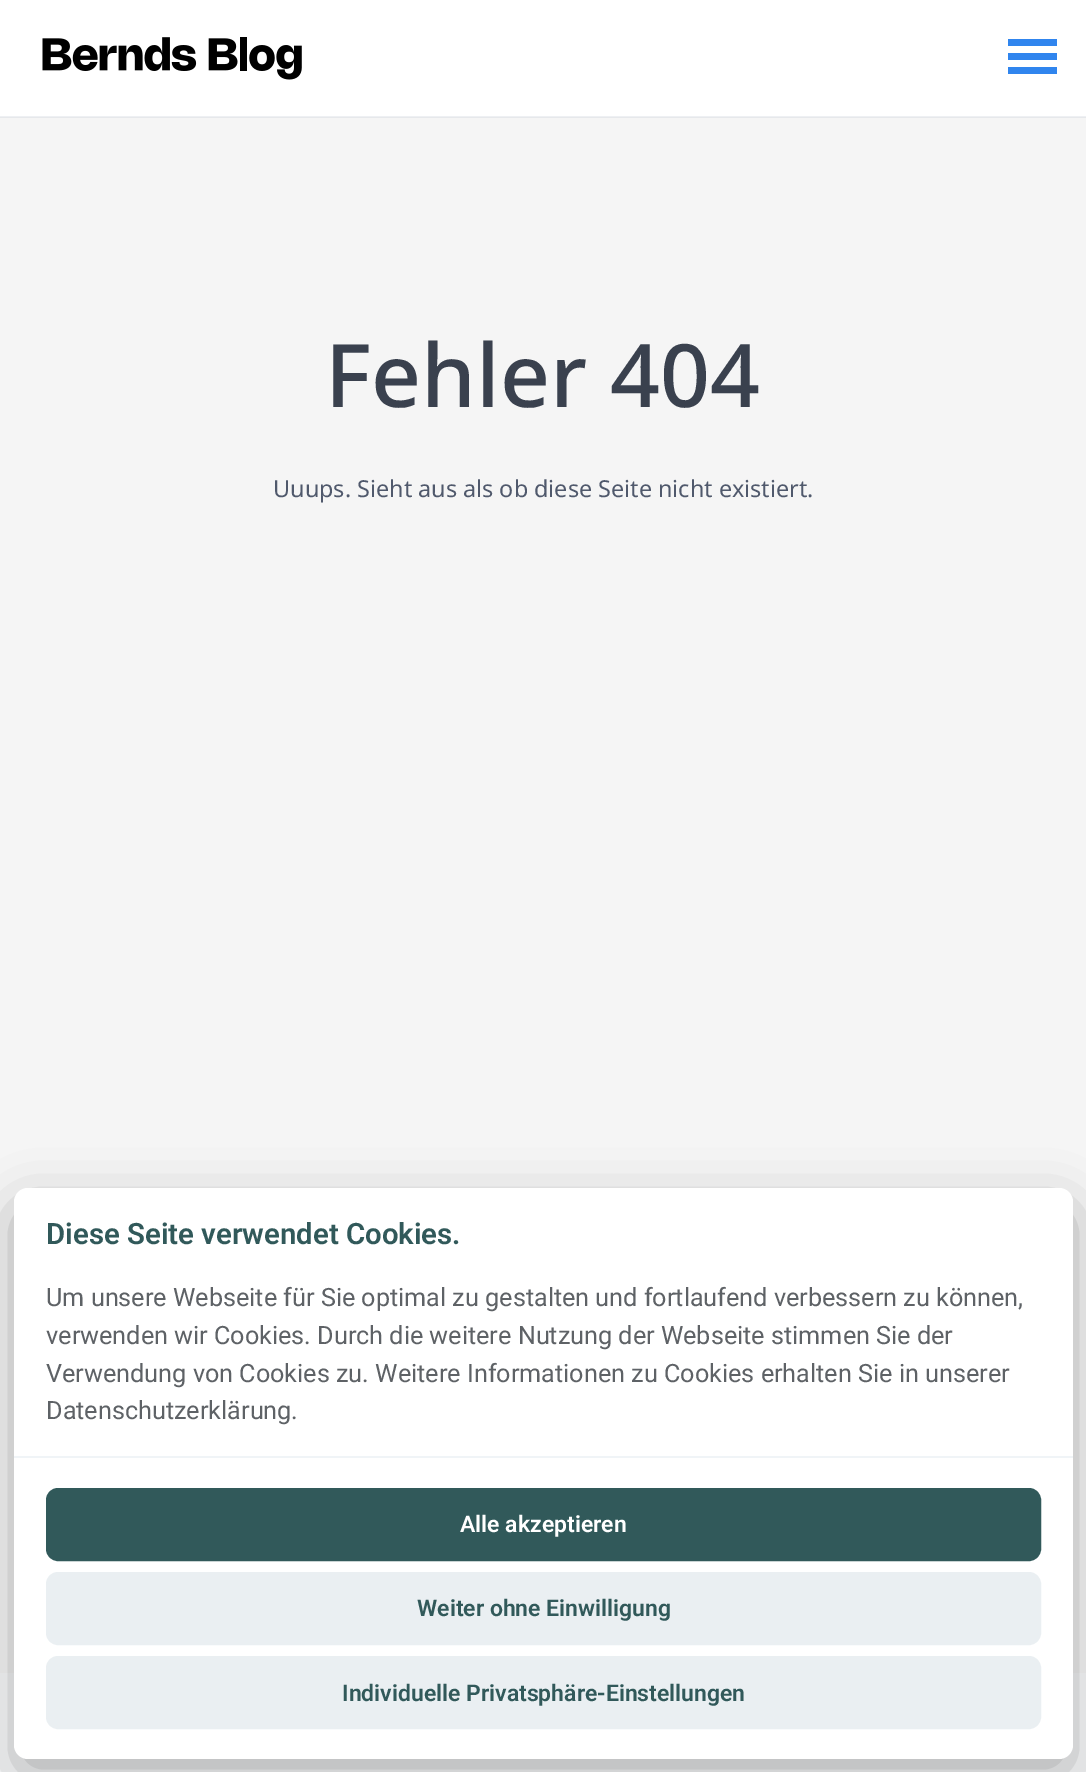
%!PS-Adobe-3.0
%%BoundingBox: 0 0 1086 1772
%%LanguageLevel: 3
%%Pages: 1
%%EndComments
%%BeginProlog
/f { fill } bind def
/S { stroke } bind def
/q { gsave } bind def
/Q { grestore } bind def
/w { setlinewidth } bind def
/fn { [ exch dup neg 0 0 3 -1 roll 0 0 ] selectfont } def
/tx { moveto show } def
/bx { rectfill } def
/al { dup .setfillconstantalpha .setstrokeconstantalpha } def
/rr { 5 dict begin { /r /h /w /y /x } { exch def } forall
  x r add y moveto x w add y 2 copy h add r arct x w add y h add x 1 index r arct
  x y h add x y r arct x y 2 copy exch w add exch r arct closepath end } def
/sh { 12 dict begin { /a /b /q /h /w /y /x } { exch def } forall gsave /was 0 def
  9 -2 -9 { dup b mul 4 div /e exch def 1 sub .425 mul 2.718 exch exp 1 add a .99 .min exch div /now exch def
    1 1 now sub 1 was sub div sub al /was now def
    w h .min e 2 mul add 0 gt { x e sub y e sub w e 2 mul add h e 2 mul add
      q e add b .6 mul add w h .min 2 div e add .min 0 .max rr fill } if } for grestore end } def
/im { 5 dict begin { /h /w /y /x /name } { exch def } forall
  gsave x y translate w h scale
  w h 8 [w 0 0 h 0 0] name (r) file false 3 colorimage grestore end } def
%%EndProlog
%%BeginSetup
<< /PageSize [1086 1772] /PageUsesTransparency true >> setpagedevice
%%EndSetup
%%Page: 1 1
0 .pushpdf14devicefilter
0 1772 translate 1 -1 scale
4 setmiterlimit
0.961 setgray
0 0 1086 1772 bx
0.902 0.91 0.922 setrgbcolor
0 117 1086 1 bx
1 setgray
0 0 1086 116 bx
0.933 0.941 0.953 setrgbcolor
0 116 1086 1 bx
(image0.raw) 42 37 260 43 im
0.188 0.522 0.933 setrgbcolor
1008 39 49 7 bx
1008 53 49 7 bx
1008 67 49 7 bx
/NotoSans-Medium 87.5 fn
0.227 0.255 0.306 setrgbcolor
(Fehler 404) 325 407 tx
/NotoSans-Regular 23.4 fn
0.314 0.349 0.424 setrgbcolor
(Uuups. Sieht aus als ob diese Seite nicht existiert.) 273 497 tx
0.973 0.976 0.98 setrgbcolor
0 1673 1086 99 bx
0 0 0.008 setrgbcolor
14 1206 1059 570 14 26 0.3 sh
1 setgray
14 1188 1059 571 14 rr f
/Roboto-SemiBold 29.4 fn
0.192 0.349 0.353 setrgbcolor
(Diese Seite verwendet Cookies.) 46 1244 tx
/Roboto-Regular 25.2 fn
0.369 0.384 0.4 setrgbcolor
(Um unsere Webseite für Sie optimal zu gestalten und fortlaufend verbessern zu können,) 46 1306 tx
(verwenden wir Cookies. Durch die weitere Nutzung der Webseite stimmen Sie der) 46 1344 tx
(Verwendung von Cookies zu. Weitere Informationen zu Cookies erhalten Sie in unserer) 46 1382 tx
(Datenschutzerklärung.) 46 1419 tx
0.941 0.957 0.969 setrgbcolor
14 1456 1059 2 bx
0.192 0.349 0.353 setrgbcolor
47 1489 993 71 11 rr q f Q
2 w
S
/Roboto-SemiBold 23 fn
1 setgray
(Alle akzeptieren) 460 1532 tx
0.918 0.937 0.949 setrgbcolor
47 1573 993 71 11 rr q f Q
S
0.192 0.349 0.353 setrgbcolor
(Weiter ohne Einwilligung) 417 1616 tx
0.918 0.937 0.949 setrgbcolor
47 1657 993 71 11 rr q f Q
S
0.192 0.349 0.353 setrgbcolor
(Individuelle Privatsphäre-Einstellungen) 342 1701 tx
.poppdf14devicefilter showpage
%%EOF
